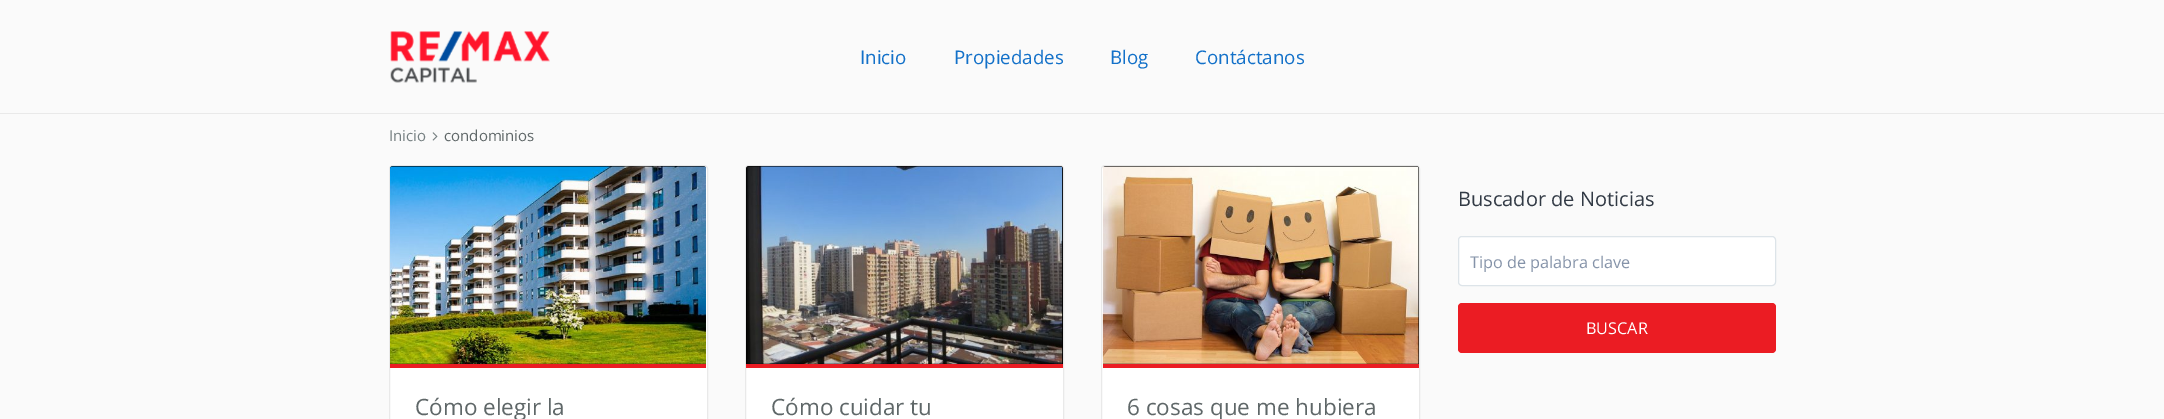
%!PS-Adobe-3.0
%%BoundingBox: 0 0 2164 419
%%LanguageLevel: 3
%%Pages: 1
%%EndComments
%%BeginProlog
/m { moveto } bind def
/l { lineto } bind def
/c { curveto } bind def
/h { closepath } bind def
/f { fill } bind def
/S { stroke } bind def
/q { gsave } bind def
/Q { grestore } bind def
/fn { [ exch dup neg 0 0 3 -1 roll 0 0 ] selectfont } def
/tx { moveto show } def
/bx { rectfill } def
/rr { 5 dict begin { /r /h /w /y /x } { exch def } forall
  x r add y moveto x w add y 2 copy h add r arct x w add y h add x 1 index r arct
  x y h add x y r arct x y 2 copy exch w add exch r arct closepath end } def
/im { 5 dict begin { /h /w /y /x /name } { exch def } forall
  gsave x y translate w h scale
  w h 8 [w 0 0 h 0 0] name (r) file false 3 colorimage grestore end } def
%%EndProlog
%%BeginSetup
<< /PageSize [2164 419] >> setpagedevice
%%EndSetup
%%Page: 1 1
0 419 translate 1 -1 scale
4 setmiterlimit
0.98 setgray
0 0 2164 419 bx
0.914 setgray
0 113 2164 1 bx
(image0.raw) 390 31 160 52 im
/OpenSans-Regular 18.75 fn
0.075 0.443 0.788 setrgbcolor
(Inicio) 860 64 tx
(Propiedades) 954 64 tx
(Blog) 1110 64 tx
(Contáctanos) 1195 64 tx
/OpenSans-Regular 15 fn
0.463 0.502 0.51 setrgbcolor
(Inicio) 389 141 tx
(image1.raw) 432 132 6 9 im
0.373 0.404 0.408 setrgbcolor
(condominios) 444 141 tx
/OpenSans-Regular 20 fn
0.196 0.227 0.271 setrgbcolor
(Buscador de Noticias) 1458 206 tx
1 setgray
1458.5 236.5 317 49 3.5 rr q f Q
0.867 0.894 0.914 setrgbcolor
S
/OpenSans-Regular 16.25 fn
0.522 0.576 0.663 setrgbcolor
(Tipo de palabra clave) 1470 268 tx
0.922 0.11 0.137 setrgbcolor
1458 303 318 50 4 rr f
1 setgray
(BUSCAR) 1586 334 tx
389.5 165.5 318 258 3.5 rr q f Q
0.914 setgray
S
0 setgray
392.5 166 m 703.5 166 l 705 166 706 167 706 168.5 c 706 368 l 390 368 l 390 168.5 l 390 167 391 166 392.5 166 c h f
0.922 0.11 0.137 setrgbcolor
390 364 316 4 bx
(image2.raw) 390 166 316 198 im
/OpenSans-Regular 22.5 fn
0.373 0.404 0.408 setrgbcolor
(Cómo elegir la) 415 415 tx
1 setgray
745.5 165.5 318 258 3.5 rr q f Q
0.914 setgray
S
0 setgray
748.5 166 m 1060.5 166 l 1062 166 1063 167 1063 168.5 c 1063 368 l 746 368 l 746 168.5 l 746 167 747 166 748.5 166 c h f
0.922 0.11 0.137 setrgbcolor
746 364 317 4 bx
(image3.raw) 746 166 317 198 im
0.373 0.404 0.408 setrgbcolor
(Cómo cuidar tu) 771 415 tx
1 setgray
1101.5 165.5 318 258 3.5 rr q f Q
0.914 setgray
S
0 setgray
1105.5 166 m 1416.5 166 l 1418 166 1419 167 1419 168.5 c 1419 368 l 1103 368 l 1103 168.5 l 1103 167 1104 166 1105.5 166 c h f
0.922 0.11 0.137 setrgbcolor
1103 364 316 4 bx
(image4.raw) 1102 166 317 198 im
0.373 0.404 0.408 setrgbcolor
(6 cosas que me hubiera) 1127 415 tx
showpage
%%EOF
